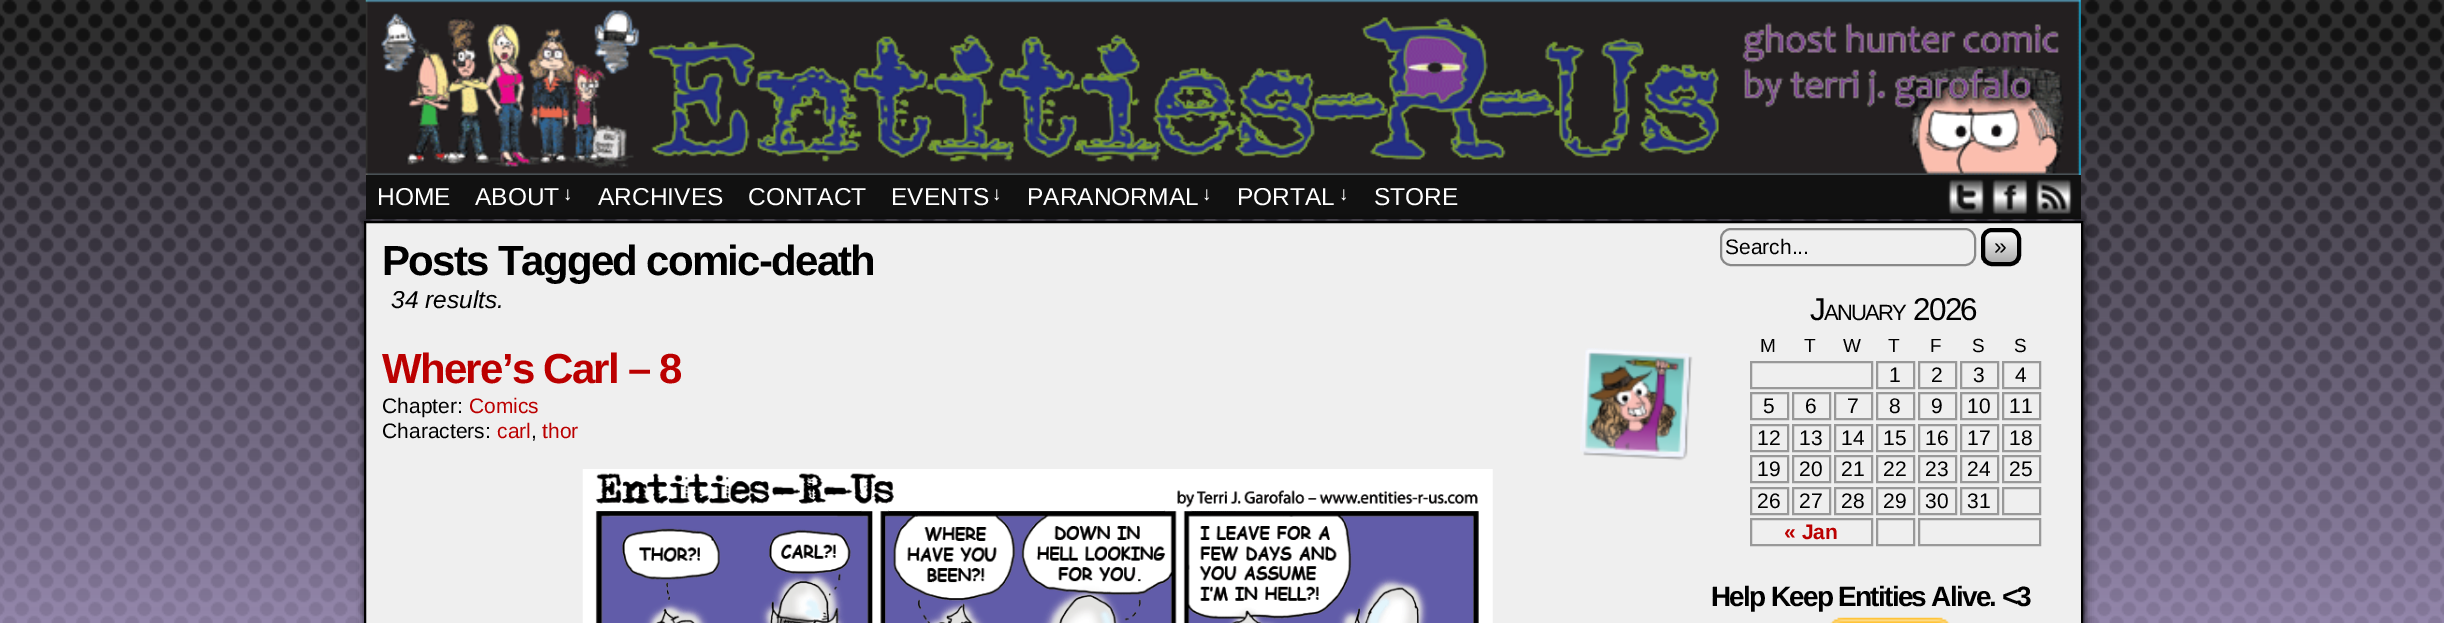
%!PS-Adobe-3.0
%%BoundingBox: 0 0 2444 623
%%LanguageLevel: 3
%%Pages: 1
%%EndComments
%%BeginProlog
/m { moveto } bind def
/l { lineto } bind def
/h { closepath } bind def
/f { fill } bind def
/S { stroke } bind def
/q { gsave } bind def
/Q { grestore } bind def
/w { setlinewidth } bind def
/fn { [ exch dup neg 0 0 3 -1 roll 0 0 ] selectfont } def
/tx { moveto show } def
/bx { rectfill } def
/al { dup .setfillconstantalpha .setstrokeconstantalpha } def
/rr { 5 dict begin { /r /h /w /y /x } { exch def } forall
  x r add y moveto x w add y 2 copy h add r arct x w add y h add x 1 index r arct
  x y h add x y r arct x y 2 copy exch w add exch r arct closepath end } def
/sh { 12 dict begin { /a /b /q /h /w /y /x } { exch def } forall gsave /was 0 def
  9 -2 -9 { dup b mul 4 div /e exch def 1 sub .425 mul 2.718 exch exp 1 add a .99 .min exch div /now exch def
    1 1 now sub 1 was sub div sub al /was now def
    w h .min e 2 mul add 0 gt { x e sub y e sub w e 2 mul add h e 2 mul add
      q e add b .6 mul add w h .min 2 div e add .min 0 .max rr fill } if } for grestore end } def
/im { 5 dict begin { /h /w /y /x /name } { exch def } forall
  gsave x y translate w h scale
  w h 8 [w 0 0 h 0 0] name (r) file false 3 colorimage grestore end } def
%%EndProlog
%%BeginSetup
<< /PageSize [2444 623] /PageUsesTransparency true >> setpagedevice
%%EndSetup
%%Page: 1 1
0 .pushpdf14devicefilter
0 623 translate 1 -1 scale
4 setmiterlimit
0.722 0.651 0.847 setrgbcolor
0 0 2444 623 bx
(image0.raw) 0 0 2444 623 im
(image1.raw) 365 0 1716 175 im
0.067 setgray
366 175 1715 44 bx
/LiberationSans-Regular 24.5 fn
1 setgray
(HOME) 377 205 tx
(ABOUT) 475 205 tx
/LiberationSans-Regular 19 fn
(↓) 563 200 tx
/LiberationSans-Regular 24.5 fn
(ARCHIVES) 598 205 tx
(CONTACT) 748 205 tx
(EVENTS) 891 205 tx
/LiberationSans-Regular 19 fn
(↓) 992 200 tx
/LiberationSans-Regular 24.5 fn
(PARANORMAL) 1027 205 tx
/LiberationSans-Regular 19 fn
(↓) 1202 200 tx
/LiberationSans-Regular 24.5 fn
(PORTAL) 1237 205 tx
/LiberationSans-Regular 19 fn
(↓) 1339 200 tx
/LiberationSans-Regular 24.5 fn
(STORE) 1374 205 tx
0 setgray
366 224 1718 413 0 4.5 1 sh
(image2.raw) 1947 179 38 35 im
(image3.raw) 1991 179 38 35 im
(image4.raw) 2035 179 38 35 im
0.937 setgray
365 222 m 2082 222 l 2082 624 l 365 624 l h q f Q
0 setgray
2 w
S
/LiberationSans-Bold 42 fn
382 275 m -1.75 0 (Posts Tagged comic-death) ashow
/LiberationSans-Italic 24.5 fn
(34 results.) 391 308 tx
/LiberationSans-Bold 42 fn
0.733 0 0 setrgbcolor
382 383 m -1.75 0 (Where’s Carl – 8) ashow
/LiberationSans-Regular 21 fn
0 setgray
(Chapter:) 382 413 tx
0.733 0 0 setrgbcolor
(Comics) 469 413 tx
0 setgray
(Characters:) 382 438 tx
0.733 0 0 setrgbcolor
(carl) 497 438 tx
0 setgray
(,) 531 438 tx
0.733 0 0 setrgbcolor
(thor) 542 438 tx
(image5.raw) 1580 348 113 113 im
(image6.raw) 582 469 911 154 im
0.533 setgray
1721 229 254 36 10 rr S
0 setgray
(Search...) 1725 254 tx
q
1981 228 40 38 11 rr clip newpath
q 1981 231 m 2021 231 l 2021 263 l 1981 263 l h clip newpath
<< /ShadingType 2 /ColorSpace /DeviceRGB /Coords [1985 231 1985 263] /Extend [true true] /Function << /FunctionType 2 /Domain [0 1] /C0 [1 1 1] /C1 [0.667 0.667 0.667] /N 1 >> >> shfill Q
Q
4 w
1983 230 36 34 9 rr S
/LiberationSans-Regular 23 fn
(») 1994 254 tx
/LiberationSans-Regular 31.5 fn
1810 320 m -1.75 0 (J) ashow
/LiberationSans-Regular 22 fn
1824 320 m -1.75 0 (ANUARY) ashow
/LiberationSans-Regular 31.5 fn
1913 320 m -1.75 0 (2026) ashow
/LiberationSans-Regular 19 fn
(M) 1760 352 tx
(T) 1804 352 tx
(W) 1843 352 tx
(T) 1888 352 tx
(F) 1930 352 tx
(S) 1972 352 tx
(S) 2014 352 tx
0.6 setgray
2 w
1751 362 121 26 rectstroke
1877 362 37 26 rectstroke
/LiberationSans-Regular 21 fn
0 setgray
(1) 1889 382 tx
0.6 setgray
1919 362 37 26 rectstroke
0 setgray
(2) 1931 382 tx
0.6 setgray
1961 362 37 26 rectstroke
0 setgray
(3) 1973 382 tx
0.6 setgray
2003 362 37 26 rectstroke
0 setgray
(4) 2015 382 tx
0.6 setgray
1751 393 37 26 rectstroke
0 setgray
(5) 1763 413 tx
0.6 setgray
1793 393 37 26 rectstroke
0 setgray
(6) 1805 413 tx
0.6 setgray
1835 393 37 26 rectstroke
0 setgray
(7) 1847 413 tx
0.6 setgray
1877 393 37 26 rectstroke
0 setgray
(8) 1889 413 tx
0.6 setgray
1919 393 37 26 rectstroke
0 setgray
(9) 1931 413 tx
0.6 setgray
1961 393 37 26 rectstroke
0 setgray
(10) 1967 413 tx
0.6 setgray
2003 393 37 26 rectstroke
0 setgray
(11) 2009 413 tx
0.6 setgray
1751 425 37 26 rectstroke
0 setgray
(12) 1757 445 tx
0.6 setgray
1793 425 37 26 rectstroke
0 setgray
(13) 1799 445 tx
0.6 setgray
1835 425 37 26 rectstroke
0 setgray
(14) 1841 445 tx
0.6 setgray
1877 425 37 26 rectstroke
0 setgray
(15) 1883 445 tx
0.6 setgray
1919 425 37 26 rectstroke
0 setgray
(16) 1925 445 tx
0.6 setgray
1961 425 37 26 rectstroke
0 setgray
(17) 1967 445 tx
0.6 setgray
2003 425 37 26 rectstroke
0 setgray
(18) 2009 445 tx
0.6 setgray
1751 456 37 26 rectstroke
0 setgray
(19) 1757 476 tx
0.6 setgray
1793 456 37 26 rectstroke
0 setgray
(20) 1799 476 tx
0.6 setgray
1835 456 37 26 rectstroke
0 setgray
(21) 1841 476 tx
0.6 setgray
1877 456 37 26 rectstroke
0 setgray
(22) 1883 476 tx
0.6 setgray
1919 456 37 26 rectstroke
0 setgray
(23) 1925 476 tx
0.6 setgray
1961 456 37 26 rectstroke
0 setgray
(24) 1967 476 tx
0.6 setgray
2003 456 37 26 rectstroke
0 setgray
(25) 2009 476 tx
0.6 setgray
1751 488 37 26 rectstroke
0 setgray
(26) 1757 508 tx
0.6 setgray
1793 488 37 26 rectstroke
0 setgray
(27) 1799 508 tx
0.6 setgray
1835 488 37 26 rectstroke
0 setgray
(28) 1841 508 tx
0.6 setgray
1877 488 37 26 rectstroke
0 setgray
(29) 1883 508 tx
0.6 setgray
1919 488 37 26 rectstroke
0 setgray
(30) 1925 508 tx
0.6 setgray
1961 488 37 26 rectstroke
0 setgray
(31) 1967 508 tx
0.6 setgray
2003 488 37 26 rectstroke
1751 519 121 26 rectstroke
/LiberationSans-Bold 21 fn
0.733 0 0 setrgbcolor
(« Jan) 1784 539 tx
0.6 setgray
1877 519 37 26 rectstroke
1919 519 121 26 rectstroke
/LiberationSans-Bold 28 fn
0 setgray
1711 606 m -1.75 0 (Help Keep Entities Alive. <3) ashow
(image7.raw) 1830 617 120 6 im
.poppdf14devicefilter showpage
%%EOF
